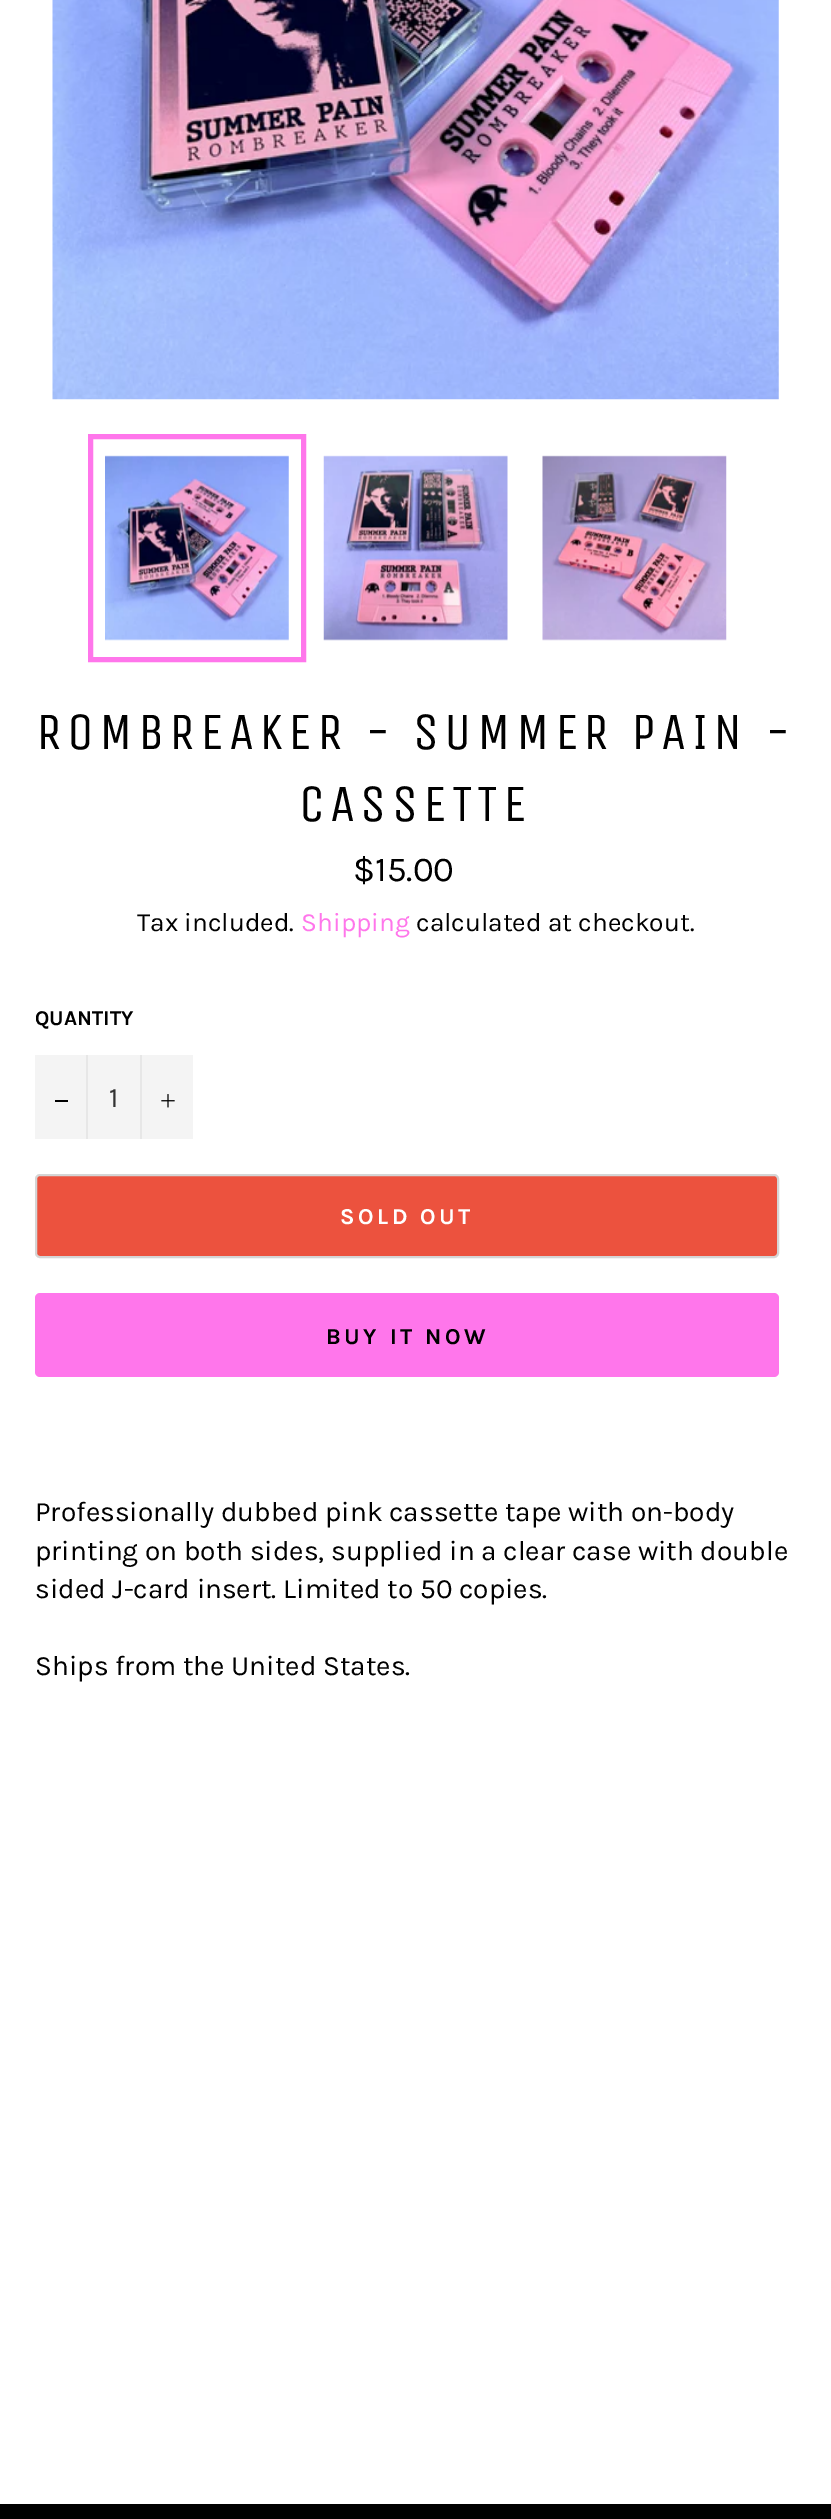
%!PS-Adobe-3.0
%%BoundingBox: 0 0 831 2519
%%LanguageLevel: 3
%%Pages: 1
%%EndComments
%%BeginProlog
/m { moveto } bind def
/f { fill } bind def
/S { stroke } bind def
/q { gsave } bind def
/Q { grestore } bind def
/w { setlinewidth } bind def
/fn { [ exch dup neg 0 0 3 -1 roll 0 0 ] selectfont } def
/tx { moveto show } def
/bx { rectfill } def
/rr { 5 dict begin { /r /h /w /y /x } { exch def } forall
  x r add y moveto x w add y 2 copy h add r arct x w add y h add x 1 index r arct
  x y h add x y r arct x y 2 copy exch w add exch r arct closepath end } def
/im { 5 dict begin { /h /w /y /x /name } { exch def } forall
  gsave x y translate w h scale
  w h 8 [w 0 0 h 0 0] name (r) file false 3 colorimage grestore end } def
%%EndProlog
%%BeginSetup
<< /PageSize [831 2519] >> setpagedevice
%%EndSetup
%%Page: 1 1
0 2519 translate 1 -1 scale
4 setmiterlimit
1 setgray
0 0 831 2519 bx
(image0.raw) 52 0 727 400 im
(image1.raw) 105 455 184 186 im
1 0.463 0.922 setrgbcolor
5 w
90.5 436.5 213 223 rectstroke
(image2.raw) 323 455 185 186 im
(image3.raw) 542 455 185 186 im
/UnicaOne-Regular 52.5 fn
0 setgray
36 749 m 5.25 0 (ROMBREAKER - SUMMER PAIN -) ashow
299 821 m 5.25 0 (CASSETTE) ashow
/Karla-Regular 35 fn
($15.00) 353 881 tx
/Karla-Regular 26.25 fn
(Tax included.) 137 931 tx
1 0.463 0.922 setrgbcolor
(Shipping) 301 931 tx
0 setgray
(calculated at checkout.) 416 931 tx
/Karla-Bold 21 fn
(QUANTITY) 35 1025 tx
0.957 setgray
35 1055 158 84 bx
0.906 setgray
86 1055 2 84 bx
0 setgray
55 1100 13 2 bx
/Karla-Regular 28 fn
0.2 setgray
(1) 109 1107 tx
0.906 setgray
140 1055 2 84 bx
(image4.raw) 161 1094 14 14 im
0.925 0.322 0.243 setrgbcolor
36 1175 742 82 4 rr q f Q
0.835 setgray
2 w
S
/Karla-Bold 22.75 fn
1 setgray
340 1224 m 3.5 0 (SOLD OUT) ashow
1 0.463 0.922 setrgbcolor
35 1293 744 84 5 rr f
0 setgray
326 1344 m 3.5 0 (BUY IT NOW) ashow
/Karla-Regular 28 fn
(Professionally dubbed pink cassette tape with on-body) 35 1521 tx
(printing on both sides, supplied in a clear case with double) 35 1560 tx
(sided J-card insert. Limited to 50 copies.) 35 1598 tx
(Ships from the United States.) 35 1675 tx
0 2504 831 15 bx
showpage
%%EOF
